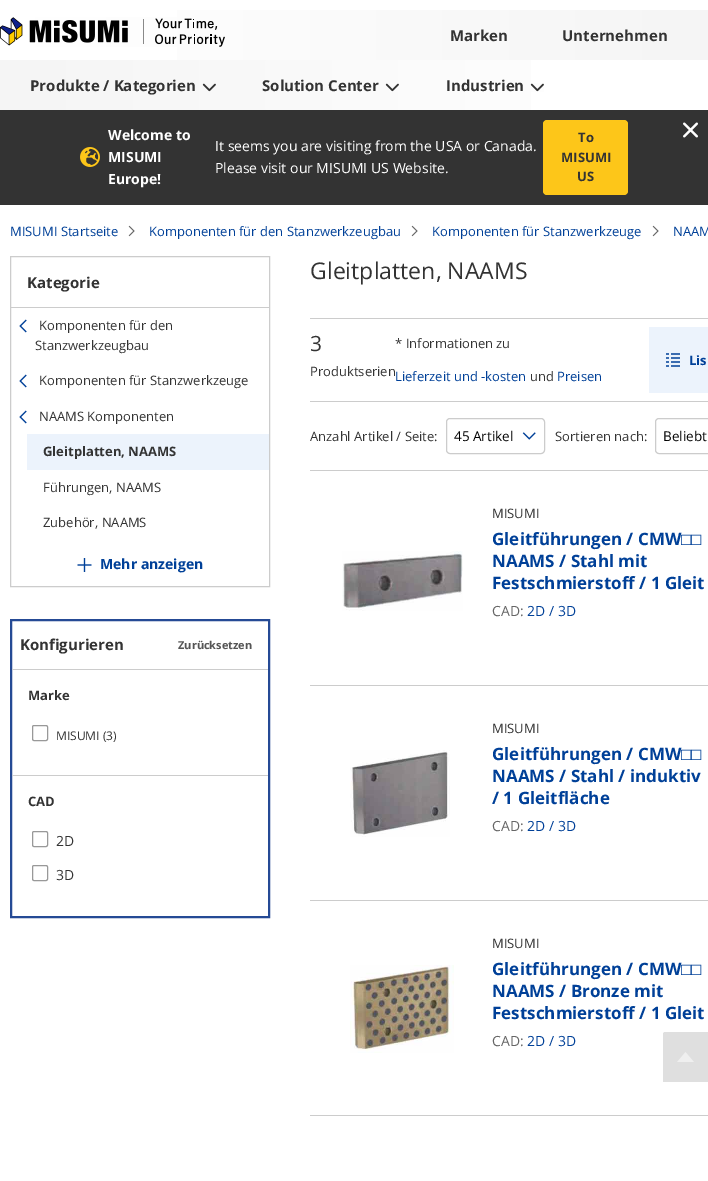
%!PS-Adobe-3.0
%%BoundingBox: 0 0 708 1181
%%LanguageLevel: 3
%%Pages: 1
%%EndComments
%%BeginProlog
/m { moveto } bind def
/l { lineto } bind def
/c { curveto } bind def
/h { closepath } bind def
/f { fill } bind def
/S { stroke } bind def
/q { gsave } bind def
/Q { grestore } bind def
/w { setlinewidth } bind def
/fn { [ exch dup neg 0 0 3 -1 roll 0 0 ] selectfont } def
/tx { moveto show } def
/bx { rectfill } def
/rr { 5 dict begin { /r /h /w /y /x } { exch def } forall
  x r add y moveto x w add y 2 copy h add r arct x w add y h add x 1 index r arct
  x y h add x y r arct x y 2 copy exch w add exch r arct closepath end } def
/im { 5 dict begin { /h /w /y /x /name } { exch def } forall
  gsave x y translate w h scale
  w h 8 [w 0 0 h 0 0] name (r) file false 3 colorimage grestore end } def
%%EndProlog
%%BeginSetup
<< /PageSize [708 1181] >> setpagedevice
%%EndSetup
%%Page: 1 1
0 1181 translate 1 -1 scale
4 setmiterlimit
1 setgray
0 0 708 1181 bx
q 177 10 m 708 10 l 708 60 l 177 60 l h clip newpath
<< /ShadingType 2 /ColorSpace /DeviceRGB /Coords [0 35 708 35] /Extend [true true] /Function << /FunctionType 2 /Domain [0 1] /C0 [1 1 1] /C1 [0.961 0.961 0.961] /N 1 >> >> shfill Q
(image0.raw) 0 17 225 30 im
/OpenSans-Bold 15 fn
0.2 setgray
(Marken) 450 41 tx
(Unternehmen) 562 41 tx
q 0 60 m 531 60 l 531 110 l 0 110 l h clip newpath
<< /ShadingType 2 /ColorSpace /DeviceRGB /Coords [708 85 0 85] /Extend [true true] /Function << /FunctionType 2 /Domain [0 1] /C0 [1 1 1] /C1 [0.961 0.961 0.961] /N 1 >> >> shfill Q
(Produkte / Kategorien) 30 91 tx
(image1.raw) 202 83 14 9 im
(Solution Center) 262 91 tx
(image2.raw) 385 83 14 9 im
(Industrien) 446 91 tx
(image3.raw) 530 83 14 9 im
0 110 708 95 bx
(image4.raw) 80 147 20 20 im
/OpenSans-Bold 14 fn
1 setgray
(Welcome to) 108 140 tx
(MISUMI) 108 162 tx
(Europe!) 108 184 tx
/OpenSans-Regular 14 fn
(It seems you are visiting from the USA or Canada.) 215 151 tx
(Please visit our MISUMI US Website.) 215 173 tx
0.992 0.776 0.098 setrgbcolor
543 120 85 75 4 rr f
/OpenSans-Bold 13 fn
0.2 setgray
(To) 578 142 tx
(MISUMI) 561 162 tx
(US) 577 181 tx
(image5.raw) 683 122 15 16 im
/OpenSans-Regular 13 fn
0 0.251 0.596 setrgbcolor
(MISUMI Startseite) 10 236 tx
(image6.raw) 128 225 7 12 im
(Komponenten für den Stanzwerkzeugbau) 149 236 tx
(image6.raw) 411 225 7 12 im
(Komponenten für Stanzwerkzeuge) 432 236 tx
(image6.raw) 652 225 7 12 im
(NAAM) 673 236 tx
0.8 setgray
10.5 256.5 259 330 rectstroke
11 307 258 1 bx
/OpenSans-Bold 15 fn
0.2 setgray
(Kategorie) 27 288 tx
(image7.raw) 19 319 8 14 im
/OpenSans-Regular 13 fn
(Komponenten für den) 39 330 tx
(Stanzwerkzeugbau) 35 350 tx
(image7.raw) 19 374 8 14 im
(Komponenten für Stanzwerkzeuge) 39 385 tx
(image7.raw) 19 410 8 14 im
(NAAMS Komponenten) 39 421 tx
0.925 0.953 0.988 setrgbcolor
27 434 242 36 bx
/OpenSans-Bold 13 fn
0.2 setgray
(Gleitplatten, NAAMS) 43 456 tx
/OpenSans-Regular 13 fn
(Führungen, NAAMS) 43 492 tx
(Zubehör, NAAMS) 43 527 tx
(image8.raw) 77 558 15 14 im
/OpenSans-Bold 14 fn
0 0.251 0.596 setrgbcolor
(Mehr anzeigen) 100 569 tx
0.145 0.29 0.584 setrgbcolor
2 w
11 620 258 297 rectstroke
0.8 setgray
12 669 256 1 bx
/OpenSans-Bold 15 fn
0.2 setgray
(Konfigurieren) 20 650 tx
/OpenSans-Bold 11 fn
0.333 setgray
(Zurücksetzen) 178 649 tx
0.8 setgray
12 775 256 1 bx
/OpenSans-Bold 13 fn
0.2 setgray
(Marke) 28 700 tx
0.6 setgray
1 w
32.5 725.5 15 15 1.5 rr S
/OpenSans-Regular 12 fn
0.2 setgray
(MISUMI \(3\)) 56 740 tx
/OpenSans-Bold 13 fn
(CAD) 28 806 tx
0.6 setgray
32.5 831.5 15 15 1.5 rr S
/OpenSans-Regular 14 fn
0.2 setgray
(2D) 56 846 tx
0.6 setgray
32.5 865.5 15 15 1.5 rr S
0.2 setgray
(3D) 56 880 tx
/OpenSans-Regular 23 fn
(Gleitplatten, NAAMS) 310 279 tx
0.8 setgray
310 318 398 1 bx
310 401 398 1 bx
/OpenSans-Regular 21 fn
0.2 setgray
(3) 310 351 tx
/OpenSans-Regular 13 fn
(Produktserien) 310 376 tx
(* Informationen zu) 395 348 tx
0 0.251 0.596 setrgbcolor
(Lieferzeit und -kosten) 395 381 tx
0.2 setgray
(und) 530 381 tx
0 0.251 0.596 setrgbcolor
(Preisen) 557 381 tx
0.925 0.953 0.988 setrgbcolor
649 327 59 66 bx
(image9.raw) 666 353 14 14 im
/OpenSans-Bold 13 fn
0 0.251 0.596 setrgbcolor
(Lis) 689 365 tx
/OpenSans-Regular 13 fn
0.2 setgray
(Anzahl Artikel / Seite:) 310 441 tx
(image10.raw) 522 432 14 8 im
0.8 setgray
446.5 418.5 98 35 3.5 rr S
/OpenSans-Regular 13.5 fn
0 setgray
(45 Artikel) 454 441 tx
/OpenSans-Regular 13 fn
0.2 setgray
(Sortieren nach:) 555 441 tx
0.8 setgray
655.5 418.5 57 35 3.5 rr S
/OpenSans-Regular 13.5 fn
0 setgray
(Beliebt) 663 441 tx
0.8 setgray
310 470 398 1 bx
310 685 398 1 bx
(image11.raw) 342 551 121 60 im
/OpenSans-Regular 13 fn
0.2 setgray
(MISUMI) 492 518 tx
/OpenSans-Bold 17 fn
0 0.251 0.596 setrgbcolor
(Gleitführungen / CMW) 492 545 tx
/LiberationSans-Bold 17 fn
(□□) 681 545 tx
/OpenSans-Bold 17 fn
(NAAMS / Stahl mit) 492 567 tx
(Festschmierstoff / 1 Gleit) 492 589 tx
/OpenSans-Regular 14 fn
0.4 setgray
(CAD:) 492 616 tx
0 0.251 0.596 setrgbcolor
(2D) 527 616 tx
(/) 549 616 tx
(3D) 558 616 tx
0.8 setgray
310 900 398 1 bx
(image12.raw) 350 750 100 87 im
/OpenSans-Regular 13 fn
0.2 setgray
(MISUMI) 492 733 tx
/OpenSans-Bold 17 fn
0 0.251 0.596 setrgbcolor
(Gleitführungen / CMW) 492 760 tx
/LiberationSans-Bold 17 fn
(□□) 681 760 tx
/OpenSans-Bold 17 fn
(NAAMS / Stahl / induktiv) 492 782 tx
(/ 1 Gleitfläche) 492 804 tx
/OpenSans-Regular 14 fn
0.4 setgray
(CAD:) 492 831 tx
0 0.251 0.596 setrgbcolor
(2D) 527 831 tx
(/) 549 831 tx
(3D) 558 831 tx
0.8 setgray
310 1115 398 1 bx
(image13.raw) 350 965 104 88 im
/OpenSans-Regular 13 fn
0.2 setgray
(MISUMI) 492 948 tx
/OpenSans-Bold 17 fn
0 0.251 0.596 setrgbcolor
(Gleitführungen / CMW) 492 975 tx
/LiberationSans-Bold 17 fn
(□□) 681 975 tx
/OpenSans-Bold 17 fn
(NAAMS / Bronze mit) 492 997 tx
(Festschmierstoff / 1 Gleit) 492 1019 tx
/OpenSans-Regular 14 fn
0.4 setgray
(CAD:) 492 1046 tx
0 0.251 0.596 setrgbcolor
(2D) 527 1046 tx
(/) 549 1046 tx
(3D) 558 1046 tx
0.875 setgray
665 1032 m 708 1032 l 708 1082 l 663 1082 l 663 1034 l 663 1033 664 1032 665 1032 c h f
(image14.raw) 677 1052 17 10 im
showpage
%%EOF
